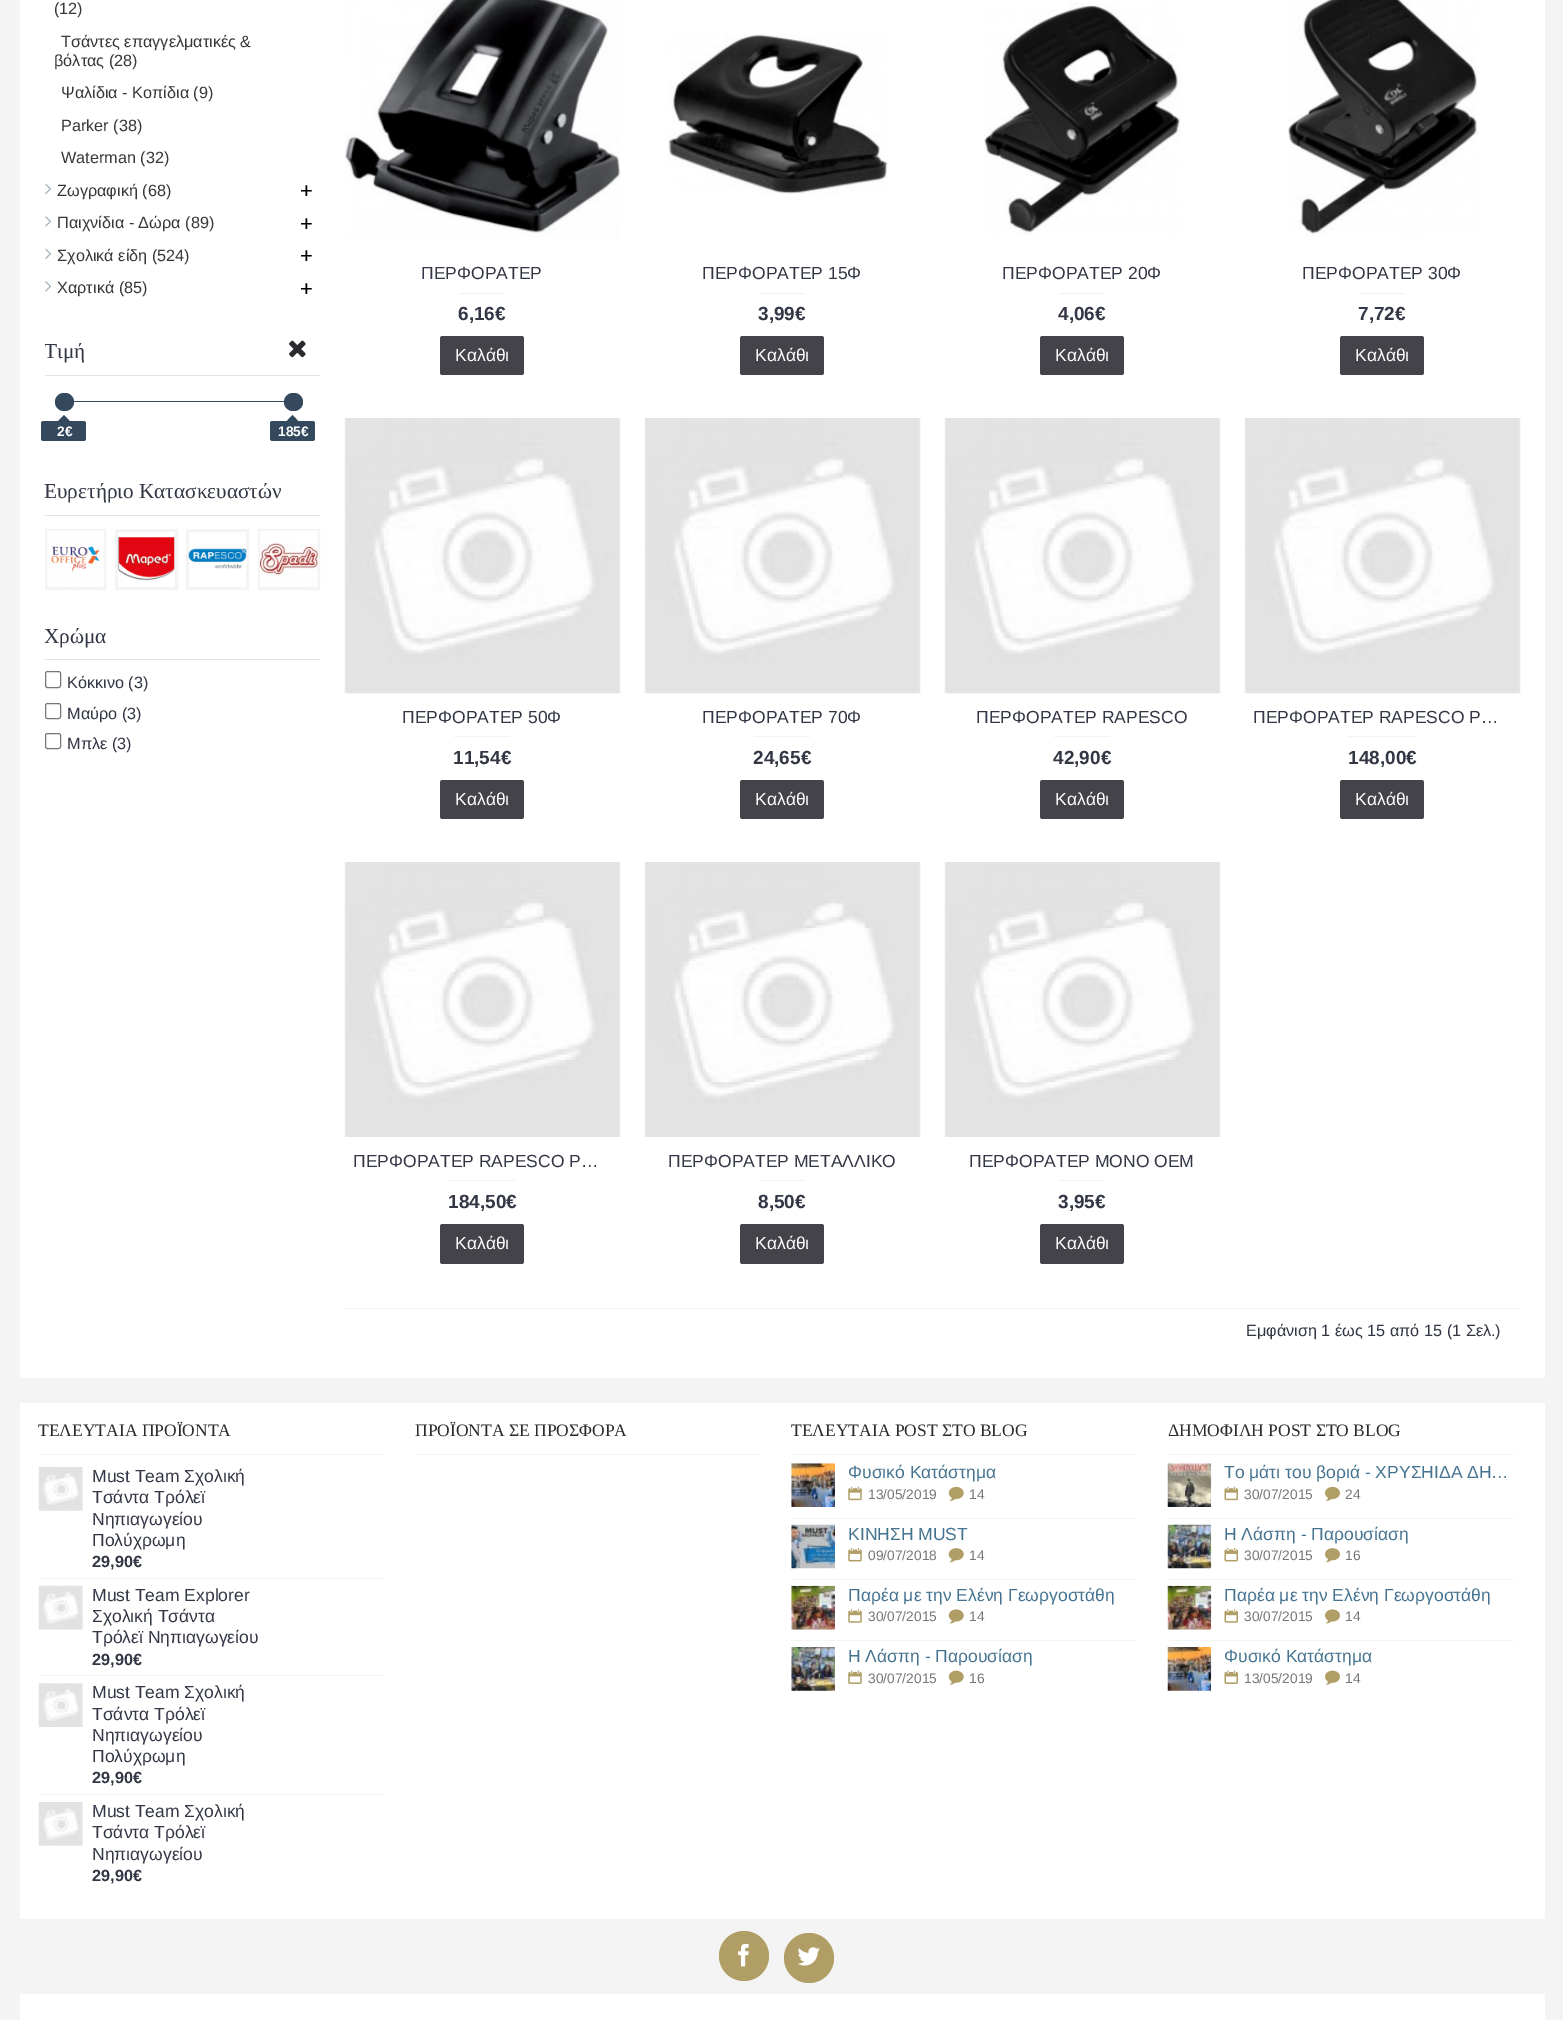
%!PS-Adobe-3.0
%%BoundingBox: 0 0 1563 2020
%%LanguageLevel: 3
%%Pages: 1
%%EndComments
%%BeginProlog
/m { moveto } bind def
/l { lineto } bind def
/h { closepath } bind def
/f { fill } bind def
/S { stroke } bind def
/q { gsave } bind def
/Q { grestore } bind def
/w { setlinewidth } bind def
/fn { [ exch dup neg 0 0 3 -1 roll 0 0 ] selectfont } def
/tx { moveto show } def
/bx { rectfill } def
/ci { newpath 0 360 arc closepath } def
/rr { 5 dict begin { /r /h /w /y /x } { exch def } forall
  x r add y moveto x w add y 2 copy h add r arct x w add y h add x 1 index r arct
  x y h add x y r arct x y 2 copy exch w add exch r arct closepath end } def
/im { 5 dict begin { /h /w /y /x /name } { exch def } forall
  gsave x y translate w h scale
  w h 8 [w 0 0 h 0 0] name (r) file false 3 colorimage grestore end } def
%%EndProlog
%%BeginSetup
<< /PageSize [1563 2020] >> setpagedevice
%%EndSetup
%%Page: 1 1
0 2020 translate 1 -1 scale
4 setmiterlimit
0.957 setgray
0 0 1563 2020 bx
1 setgray
20 0 1525 1378 bx
/LiberationSans-Regular 16.25 fn
0.22 setgray
(\(12\)) 54 14 tx
(Τσάντες επαγγελματικές &) 61 47 tx
(βόλτας \(28\)) 54 66 tx
(Ψαλίδια - Κοπίδια \(9\)) 61 98 tx
(Parker \(38\)) 61 131 tx
(Waterman \(32\)) 61 163 tx
(image0.raw) 45 183 7 11 im
(Ζωγραφική \(68\)) 57 196 tx
/LiberationSans-Regular 22 fn
0 setgray
(+) 300 198 tx
(image1.raw) 45 216 7 11 im
/LiberationSans-Regular 16.25 fn
0.22 setgray
(Παιχνίδια - Δώρα \(89\)) 57 228 tx
/LiberationSans-Regular 22 fn
0 setgray
(+) 300 231 tx
(image0.raw) 45 248 7 11 im
/LiberationSans-Regular 16.25 fn
0.22 setgray
(Σχολικά είδη \(524\)) 57 261 tx
/LiberationSans-Regular 22 fn
0 setgray
(+) 300 263 tx
(image1.raw) 45 281 7 11 im
/LiberationSans-Regular 16.25 fn
0.22 setgray
(Χαρτικά \(85\)) 57 293 tx
/LiberationSans-Regular 22 fn
0 setgray
(+) 300 296 tx
(image2.raw) 289 340 17 18 im
0.894 setgray
45 375 275 1 bx
q
45 325 275 50 rectclip
/LiberationSerif-Regular 21.25 fn
0.2 0.216 0.271 setrgbcolor
(Τιμή) 44 358 tx
Q
0.204 0.286 0.369 setrgbcolor
66 401 219 1 bx
55 393 19 18 9 rr f
41 421 45 20 2.5 rr f
72.5 424 m 55 424 l 64 415 l h f
/LiberationSans-Bold 13.75 fn
1 setgray
(2€) 57 436 tx
0.204 0.286 0.369 setrgbcolor
284 393 19 18 9 rr f
270 421 45 20 2.5 rr f
301 424 m 284 424 l 292.5 415 l h f
1 setgray
(185€) 278 436 tx
0.894 setgray
45 515 275 1 bx
/LiberationSerif-Regular 21.25 fn
0.2 0.216 0.271 setrgbcolor
(Ευρετήριο Κατασκευαστών) 44 498 tx
0.957 setgray
3 w
46.5 530.5 58 58 rectstroke
(image3.raw) 47 531 57 56 im
116.5 530.5 60 58 rectstroke
(image4.raw) 117 537 58 44 im
187.5 530.5 60 58 rectstroke
(image5.raw) 188 548 59 21 im
259.5 530.5 59 58 rectstroke
(image6.raw) 260 531 58 56 im
0.894 setgray
45 659 275 1 bx
0.2 0.216 0.271 setrgbcolor
(Χρώμα) 44 643 tx
0.463 setgray
1 w
45.5 671.5 15 16 2 rr S
/LiberationSans-Regular 16.25 fn
0.2 0.216 0.271 setrgbcolor
(Κόκκινο \(3\)) 67 688 tx
0.463 setgray
45.5 703.5 15 15 2 rr S
0.2 0.216 0.271 setrgbcolor
(Μαύρο \(3\)) 67 719 tx
0.463 setgray
45.5 733.5 15 15 2 rr S
0.2 0.216 0.271 setrgbcolor
(Μπλε \(3\)) 67 749 tx
(image7.raw) 345 0 276 238 im
/LiberationSans-Regular 17.5 fn
(ΠΕΡΦΟΡΑΤΕΡ) 421 279 tx
0.965 0.945 0.925 setrgbcolor
459 293 46 1 bx
/LiberationSans-Bold 19 fn
0.2 0.216 0.271 setrgbcolor
(6,16€) 458 320 tx
0.267 0.263 0.286 setrgbcolor
440 336 84 39 2.5 rr f
/LiberationSans-Regular 17.5 fn
1 setgray
(Καλάθι) 455 361 tx
(image8.raw) 668 34 220 160 im
0.2 0.216 0.271 setrgbcolor
(ΠΕΡΦΟΡΑΤΕΡ 15Φ) 702 279 tx
0.965 0.945 0.925 setrgbcolor
759 293 46 1 bx
/LiberationSans-Bold 19 fn
0.2 0.216 0.271 setrgbcolor
(3,99€) 758 320 tx
0.267 0.263 0.286 setrgbcolor
740 336 84 39 2.5 rr f
/LiberationSans-Regular 17.5 fn
1 setgray
(Καλάθι) 755 361 tx
(image9.raw) 984 3 198 233 im
0.2 0.216 0.271 setrgbcolor
(ΠΕΡΦΟΡΑΤΕΡ 20Φ) 1002 279 tx
0.965 0.945 0.925 setrgbcolor
1059 293 46 1 bx
/LiberationSans-Bold 19 fn
0.2 0.216 0.271 setrgbcolor
(4,06€) 1058 320 tx
0.267 0.263 0.286 setrgbcolor
1040 336 84 39 2.5 rr f
/LiberationSans-Regular 17.5 fn
1 setgray
(Καλάθι) 1055 361 tx
(image10.raw) 1288 0 190 236 im
0.2 0.216 0.271 setrgbcolor
(ΠΕΡΦΟΡΑΤΕΡ 30Φ) 1302 279 tx
0.965 0.945 0.925 setrgbcolor
1359 293 46 1 bx
/LiberationSans-Bold 19 fn
0.2 0.216 0.271 setrgbcolor
(7,72€) 1358 320 tx
0.267 0.263 0.286 setrgbcolor
1340 336 84 39 2.5 rr f
/LiberationSans-Regular 17.5 fn
1 setgray
(Καλάθι) 1355 361 tx
(image11.raw) 344 418 277 276 im
0.2 0.216 0.271 setrgbcolor
(ΠΕΡΦΟΡΑΤΕΡ 50Φ) 402 723 tx
0.965 0.945 0.925 setrgbcolor
454 736 56 1 bx
/LiberationSans-Bold 19 fn
0.2 0.216 0.271 setrgbcolor
(11,54€) 453 764 tx
0.267 0.263 0.286 setrgbcolor
440 780 84 39 2.5 rr f
/LiberationSans-Regular 17.5 fn
1 setgray
(Καλάθι) 455 805 tx
(image12.raw) 644 418 277 276 im
0.2 0.216 0.271 setrgbcolor
(ΠΕΡΦΟΡΑΤΕΡ 70Φ) 702 723 tx
0.965 0.945 0.925 setrgbcolor
754 736 56 1 bx
/LiberationSans-Bold 19 fn
0.2 0.216 0.271 setrgbcolor
(24,65€) 753 764 tx
0.267 0.263 0.286 setrgbcolor
740 780 84 39 2.5 rr f
/LiberationSans-Regular 17.5 fn
1 setgray
(Καλάθι) 755 805 tx
(image13.raw) 944 418 277 276 im
0.2 0.216 0.271 setrgbcolor
(ΠΕΡΦΟΡΑΤΕΡ RAPESCO) 976 723 tx
0.965 0.945 0.925 setrgbcolor
1054 736 56 1 bx
/LiberationSans-Bold 19 fn
0.2 0.216 0.271 setrgbcolor
(42,90€) 1053 764 tx
0.267 0.263 0.286 setrgbcolor
1040 780 84 39 2.5 rr f
/LiberationSans-Regular 17.5 fn
1 setgray
(Καλάθι) 1055 805 tx
(image14.raw) 1244 418 277 276 im
0.2 0.216 0.271 setrgbcolor
(ΠΕΡΦΟΡΑΤΕΡ RAPESCO P…) 1253 723 tx
0.965 0.945 0.925 setrgbcolor
1348 736 68 1 bx
/LiberationSans-Bold 19 fn
0.2 0.216 0.271 setrgbcolor
(148,00€) 1348 764 tx
0.267 0.263 0.286 setrgbcolor
1340 780 84 39 2.5 rr f
/LiberationSans-Regular 17.5 fn
1 setgray
(Καλάθι) 1355 805 tx
(image15.raw) 344 862 277 275 im
0.2 0.216 0.271 setrgbcolor
(ΠΕΡΦΟΡΑΤΕΡ RAPESCO P…) 353 1167 tx
0.965 0.945 0.925 setrgbcolor
448 1180 68 1 bx
/LiberationSans-Bold 19 fn
0.2 0.216 0.271 setrgbcolor
(184,50€) 448 1208 tx
0.267 0.263 0.286 setrgbcolor
440 1224 84 40 2.5 rr f
/LiberationSans-Regular 17.5 fn
1 setgray
(Καλάθι) 455 1249 tx
(image16.raw) 644 862 277 275 im
0.2 0.216 0.271 setrgbcolor
(ΠΕΡΦΟΡΑΤΕΡ ΜΕΤΑΛΛΙΚΟ) 668 1167 tx
0.965 0.945 0.925 setrgbcolor
759 1180 46 1 bx
/LiberationSans-Bold 19 fn
0.2 0.216 0.271 setrgbcolor
(8,50€) 758 1208 tx
0.267 0.263 0.286 setrgbcolor
740 1224 84 40 2.5 rr f
/LiberationSans-Regular 17.5 fn
1 setgray
(Καλάθι) 755 1249 tx
(image17.raw) 944 862 277 275 im
0.2 0.216 0.271 setrgbcolor
(ΠΕΡΦΟΡΑΤΕΡ ΜΟΝΟ ΟΕΜ) 969 1167 tx
0.965 0.945 0.925 setrgbcolor
1059 1180 46 1 bx
/LiberationSans-Bold 19 fn
0.2 0.216 0.271 setrgbcolor
(3,95€) 1058 1208 tx
0.267 0.263 0.286 setrgbcolor
1040 1224 84 40 2.5 rr f
/LiberationSans-Regular 17.5 fn
1 setgray
(Καλάθι) 1055 1249 tx
0.957 setgray
345 1308 1175 1 bx
/LiberationSans-Regular 16.25 fn
0.2 0.216 0.271 setrgbcolor
(Εμφάνιση 1 έως 15 από 15 \(1 Σελ.\)) 1246 1336 tx
1 setgray
20 1403 1525 617 bx
0.957 setgray
39 1454 345 1 bx
/LiberationSerif-Regular 17.5 fn
0.165 0.169 0.18 setrgbcolor
(ΤΕΛΕΥΤΑΙΑ ΠΡΟΪΟΝΤΑ) 38 1436 tx
0.957 setgray
39 1578 345 1 bx
(image18.raw) 38 1467 45 44 im
/LiberationSans-Regular 17.5 fn
0.2 0.216 0.271 setrgbcolor
(Must Team Σχολική) 92 1482 tx
(Τσάντα Τρόλεϊ) 92 1503 tx
(Νηπιαγωγείου) 92 1525 tx
(Πολύχρωμη) 92 1546 tx
/LiberationSans-Bold 16.25 fn
(29,90€) 92 1567 tx
0.957 setgray
39 1675 345 1 bx
(image19.raw) 38 1585 45 45 im
/LiberationSans-Regular 17.5 fn
0.2 0.216 0.271 setrgbcolor
(Must Team Explorer) 92 1601 tx
(Σχολική Τσάντα) 92 1622 tx
(Τρόλεϊ Νηπιαγωγείου) 92 1643 tx
/LiberationSans-Bold 16.25 fn
(29,90€) 92 1665 tx
0.957 setgray
39 1794 345 1 bx
(image20.raw) 38 1683 45 44 im
/LiberationSans-Regular 17.5 fn
0.2 0.216 0.271 setrgbcolor
(Must Team Σχολική) 92 1698 tx
(Τσάντα Τρόλεϊ) 92 1720 tx
(Νηπιαγωγείου) 92 1741 tx
(Πολύχρωμη) 92 1762 tx
/LiberationSans-Bold 16.25 fn
(29,90€) 92 1783 tx
(image18.raw) 38 1802 45 44 im
/LiberationSans-Regular 17.5 fn
(Must Team Σχολική) 92 1817 tx
(Τσάντα Τρόλεϊ) 92 1838 tx
(Νηπιαγωγείου) 92 1860 tx
/LiberationSans-Bold 16.25 fn
(29,90€) 92 1881 tx
0.957 setgray
415 1454 345 1 bx
/LiberationSerif-Regular 17.5 fn
0.165 0.169 0.18 setrgbcolor
(ΠΡΟΪΟΝΤΑ ΣΕ ΠΡΟΣΦΟΡΑ) 415 1436 tx
0.957 setgray
791 1454 345 1 bx
0.165 0.169 0.18 setrgbcolor
(ΤΕΛΕΥΤΑΙΑ POST ΣΤΟ BLOG) 791 1436 tx
0.957 setgray
791 1518 345 1 bx
(image21.raw) 791 1463 44 44 im
/LiberationSans-Regular 17.5 fn
0.271 0.451 0.561 setrgbcolor
(Φυσικό Κατάστημα) 848 1478 tx
(image22.raw) 848 1486 14 15 im
/LiberationSans-Regular 13.75 fn
0.467 setgray
(13/05/2019) 868 1499 tx
(image23.raw) 948 1486 16 15 im
(14) 969 1499 tx
0.957 setgray
791 1579 345 1 bx
(image24.raw) 791 1524 44 45 im
/LiberationSans-Regular 17.5 fn
0.271 0.451 0.561 setrgbcolor
(ΚΙΝΗΣΗ MUST) 848 1540 tx
(image25.raw) 848 1547 14 15 im
/LiberationSans-Regular 13.75 fn
0.467 setgray
(09/07/2018) 868 1560 tx
(image26.raw) 948 1548 16 15 im
(14) 969 1560 tx
0.957 setgray
791 1640 345 1 bx
(image27.raw) 791 1585 44 45 im
/LiberationSans-Regular 17.5 fn
0.271 0.451 0.561 setrgbcolor
(Παρέα με την Ελένη Γεωργοστάθη) 848 1601 tx
(image28.raw) 848 1609 14 14 im
/LiberationSans-Regular 13.75 fn
0.467 setgray
(30/07/2015) 868 1621 tx
(image29.raw) 948 1609 16 15 im
(14) 969 1621 tx
(image30.raw) 791 1647 44 44 im
/LiberationSans-Regular 17.5 fn
0.271 0.451 0.561 setrgbcolor
(Η Λάσπη - Παρουσίαση) 848 1662 tx
(image31.raw) 848 1670 14 14 im
/LiberationSans-Regular 13.75 fn
0.467 setgray
(30/07/2015) 868 1683 tx
(image32.raw) 948 1670 16 15 im
(16) 969 1683 tx
0.957 setgray
1168 1454 346 1 bx
/LiberationSerif-Regular 17.5 fn
0.165 0.169 0.18 setrgbcolor
(ΔΗΜΟΦΙΛΗ POST ΣΤΟ BLOG) 1168 1436 tx
0.957 setgray
1168 1518 346 1 bx
(image33.raw) 1167 1463 45 44 im
/LiberationSans-Regular 17.5 fn
0.271 0.451 0.561 setrgbcolor
(Το μάτι του βοριά - ΧΡΥΣΗΙΔΑ ΔΗ…) 1224 1478 tx
(image34.raw) 1224 1486 14 15 im
/LiberationSans-Regular 13.75 fn
0.467 setgray
(30/07/2015) 1244 1499 tx
(image35.raw) 1325 1486 15 15 im
(24) 1345 1499 tx
0.957 setgray
1168 1579 346 1 bx
(image36.raw) 1167 1524 45 45 im
/LiberationSans-Regular 17.5 fn
0.271 0.451 0.561 setrgbcolor
(Η Λάσπη - Παρουσίαση) 1224 1540 tx
(image37.raw) 1224 1547 14 15 im
/LiberationSans-Regular 13.75 fn
0.467 setgray
(30/07/2015) 1244 1560 tx
(image38.raw) 1325 1548 15 15 im
(16) 1345 1560 tx
0.957 setgray
1168 1640 346 1 bx
(image39.raw) 1167 1585 45 45 im
/LiberationSans-Regular 17.5 fn
0.271 0.451 0.561 setrgbcolor
(Παρέα με την Ελένη Γεωργοστάθη) 1224 1601 tx
(image40.raw) 1224 1609 14 14 im
/LiberationSans-Regular 13.75 fn
0.467 setgray
(30/07/2015) 1244 1621 tx
(image41.raw) 1325 1609 15 15 im
(14) 1345 1621 tx
(image42.raw) 1167 1647 45 44 im
/LiberationSans-Regular 17.5 fn
0.271 0.451 0.561 setrgbcolor
(Φυσικό Κατάστημα) 1224 1662 tx
(image43.raw) 1224 1670 14 14 im
/LiberationSans-Regular 13.75 fn
0.467 setgray
(13/05/2019) 1244 1683 tx
(image44.raw) 1325 1670 15 15 im
(14) 1345 1683 tx
0.957 setgray
20 1919 1525 75 bx
0.69 0.62 0.4 setrgbcolor
744 1956 25 ci f
(image45.raw) 738 1943 11 24 im
809 1958 25 ci f
(image46.raw) 797 1947 23 19 im
showpage
%%EOF
